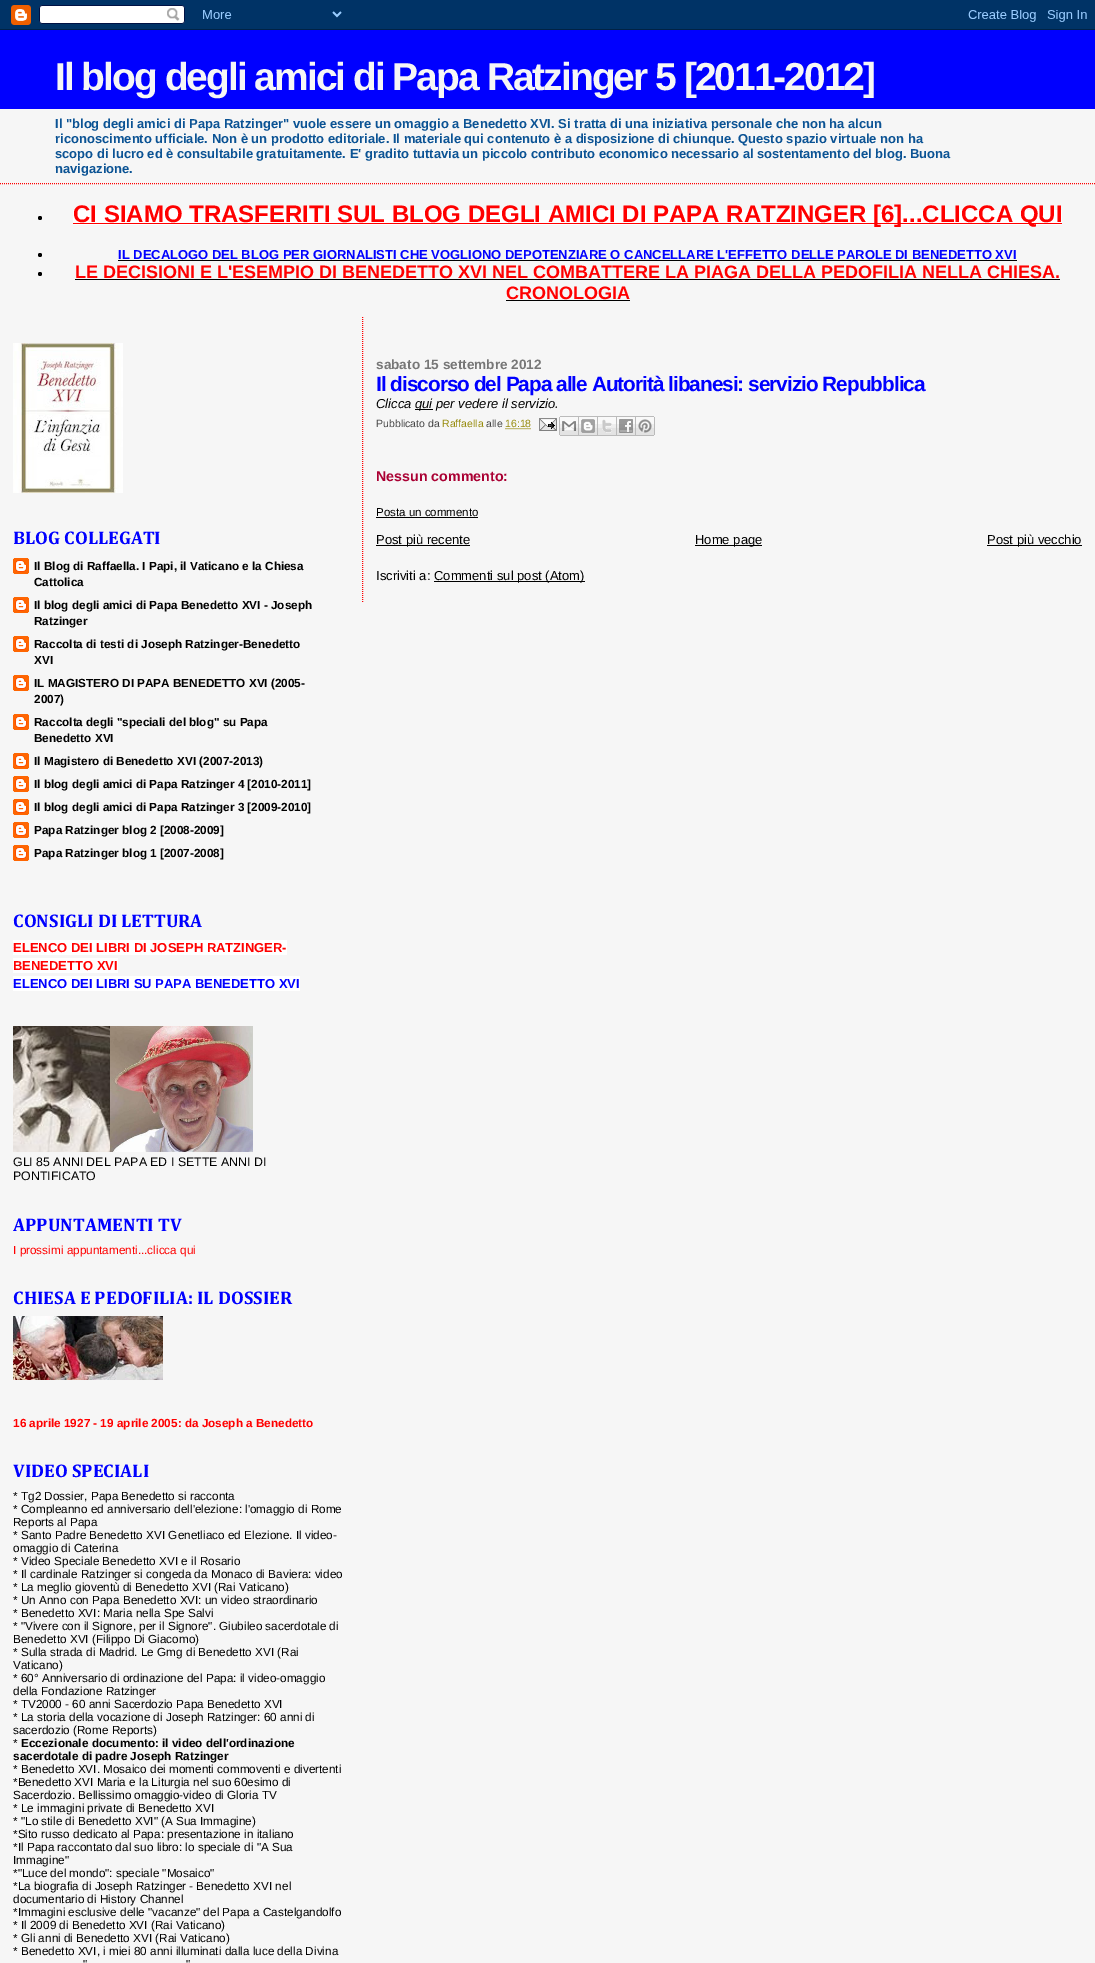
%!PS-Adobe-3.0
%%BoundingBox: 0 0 1095 1963
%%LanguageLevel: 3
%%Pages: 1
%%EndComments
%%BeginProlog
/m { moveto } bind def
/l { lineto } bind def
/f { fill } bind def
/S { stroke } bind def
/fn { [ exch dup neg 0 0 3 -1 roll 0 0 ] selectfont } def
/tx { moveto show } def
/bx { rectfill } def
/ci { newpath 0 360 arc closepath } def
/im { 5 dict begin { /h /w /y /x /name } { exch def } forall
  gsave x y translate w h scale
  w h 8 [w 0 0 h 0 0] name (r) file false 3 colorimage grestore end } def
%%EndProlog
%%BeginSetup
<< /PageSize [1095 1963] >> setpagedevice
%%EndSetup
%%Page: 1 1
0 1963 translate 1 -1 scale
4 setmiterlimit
0.965 setgray
0 0 1095 1963 bx
(image0.raw) 0 0 1095 30 im
1 0 0 setrgbcolor
[1 1] 0 setdash
0 183.5 m 1095 183.5 l S
0 0 1 setrgbcolor
0 30 1095 79 bx
/LiberationSans-Bold 39 fn
0.965 setgray
55 90 m -2 0 (Il blog degli amici di Papa Ratzinger 5 [2011-2012]) ashow
/LiberationSans-Bold 13 fn
0.043 0.325 0.58 setrgbcolor
(Il "blog degli amici di Papa Ratzinger" vuole essere un omaggio a Benedetto XVI. Si tratta di una iniziativa personale che non ha alcun) 55 128 tx
(riconoscimento ufficiale. Non è un prodotto editoriale. Il materiale qui contenuto è a disposizione di chiunque. Questo spazio virtuale non ha) 55 143 tx
(scopo di lucro ed è consultabile gratuitamente. E' gradito tuttavia un piccolo contributo economico necessario al sostentamento del blog. Buona) 55 158 tx
(navigazione.) 55 173 tx
0 setgray
40 218 2 ci f
1 setgray
73 210 989 15 bx
1 0 0 setrgbcolor
73 223 989 1 bx
/LiberationSans-Bold 24 fn
(CI SIAMO TRASFERITI SUL BLOG DEGLI AMICI DI PAPA RATZINGER [6]...CLICCA QUI) 73 222 tx
0 setgray
40 255 2 ci f
/LiberationSans-Bold 13 fn
0 0 1 setrgbcolor
(IL DECALOGO DEL BLOG PER GIORNALISTI CHE VOGLIONO DEPOTENZIARE O CANCELLARE L'EFFETTO DELLE PAROLE DI BENEDETTO XVI) 118 259 tx
0 setgray
118 260 899 1 bx
40 274 2 ci f
/LiberationSans-Bold 18 fn
1 0 0 setrgbcolor
(LE DECISIONI E L'ESEMPIO DI BENEDETTO XVI NEL COMBATTERE LA PIAGA DELLA PEDOFILIA NELLA CHIESA.) 75 278 tx
0 setgray
75 279 985 1 bx
1 0 0 setrgbcolor
(CRONOLOGIA) 506 299 tx
0 setgray
506 300 124 1 bx
1 0 0 setrgbcolor
362.5 317 m 362.5 603 l S
/LiberationSans-Bold 13.6 fn
0.467 setgray
(sabato 15 settembre 2012) 376 369 tx
/LiberationSans-Bold 20.8 fn
0 0 1 setrgbcolor
376 391 m -1 0 (Il discorso del Papa alle Autorità libanesi: servizio Repubblica) ashow
/LiberationSans-Italic 13 fn
0 setgray
(Clicca) 376 408 tx
415 409 18 1 bx
(qui per vedere il servizio.) 415 408 tx
/LiberationSans-Regular 10.5 fn
0.267 setgray
(Pubblicato da) 376 427 tx
0.588 0.541 0.039 setrgbcolor
(Raffaella) 442 427 tx
0.267 setgray
(alle) 486 427 tx
0.588 0.541 0.039 setrgbcolor
(16:18) 505 427 tx
505.5 428.5 m 531.5 428.5 l S
(image1.raw) 539 418 18 13 im
(image2.raw) 559 416 20 20 im
(image3.raw) 579 416 19 20 im
(image4.raw) 598 416 19 20 im
(image5.raw) 617 416 19 20 im
(image6.raw) 636 416 19 20 im
/LiberationSans-Bold 14.25 fn
0.667 0 0.2 setrgbcolor
(Nessun commento:) 376 481 tx
/LiberationSans-Regular 11.5 fn
0 setgray
(Posta un commento) 376 516 tx
376 517 102 1 bx
376 545 94 1 bx
/LiberationSans-Regular 13 fn
(Post più recente) 376 544 tx
695 545 67 1 bx
(Home page) 695 544 tx
987 545 95 1 bx
(Post più vecchio) 987 544 tx
(Iscriviti a:) 376 580 tx
434 581 151 1 bx
(Commenti sul post \(Atom\)) 434 580 tx
(image7.raw) 13 343 110 150 im
/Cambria-Bold 18.5 fn
0 0 1 setrgbcolor
(BLOG COLLEGATI) 13 544 tx
(image8.raw) 13 558 16 16 im
/LiberationSans-Bold 11.75 fn
0 setgray
(Il Blog di Raffaella. I Papi, il Vaticano e la Chiesa) 34 570 tx
(Cattolica) 34 586 tx
(image8.raw) 13 597 16 16 im
(Il blog degli amici di Papa Benedetto XVI - Joseph) 34 609 tx
(Ratzinger) 34 625 tx
(image8.raw) 13 636 16 16 im
(Raccolta di testi di Joseph Ratzinger-Benedetto) 34 648 tx
(XVI) 34 664 tx
(image8.raw) 13 675 16 16 im
(IL MAGISTERO DI PAPA BENEDETTO XVI \(2005-) 34 687 tx
(2007\)) 34 703 tx
(image8.raw) 13 714 16 16 im
(Raccolta degli "speciali del blog" su Papa) 34 726 tx
(Benedetto XVI) 34 742 tx
(image8.raw) 13 753 16 16 im
(Il Magistero di Benedetto XVI \(2007-2013\)) 34 765 tx
(image8.raw) 13 776 16 16 im
(Il blog degli amici di Papa Ratzinger 4 [2010-2011]) 34 788 tx
(image8.raw) 13 799 16 16 im
(Il blog degli amici di Papa Ratzinger 3 [2009-2010]) 34 811 tx
(image8.raw) 13 822 16 16 im
(Papa Ratzinger blog 2 [2008-2009]) 34 834 tx
(image8.raw) 13 845 16 16 im
(Papa Ratzinger blog 1 [2007-2008]) 34 857 tx
/Cambria-Bold 18.5 fn
0 0 1 setrgbcolor
(CONSIGLI DI LETTURA) 13 927 tx
1 setgray
13 940 274 15 bx
/LiberationSans-Bold 13 fn
1 0 0 setrgbcolor
(ELENCO DEI LIBRI DI JOSEPH RATZINGER-) 13 952 tx
1 setgray
13 958 105 15 bx
1 0 0 setrgbcolor
(BENEDETTO XVI) 13 970 tx
1 setgray
13 976 287 15 bx
0 0 1 setrgbcolor
(ELENCO DEI LIBRI SU PAPA BENEDETTO XVI) 13 988 tx
(image9.raw) 13 1026 240 126 im
/LiberationSans-Regular 12.35 fn
0 setgray
(GLI 85 ANNI DEL PAPA ED I SETTE ANNI DI) 13 1166 tx
(PONTIFICATO) 13 1180 tx
/Cambria-Bold 18.5 fn
0 0 1 setrgbcolor
(APPUNTAMENTI TV) 13 1231 tx
/LiberationSans-Regular 11.75 fn
1 0 0 setrgbcolor
(I prossimi appuntamenti...clicca qui) 13 1254 tx
/Cambria-Bold 18.5 fn
0 0 1 setrgbcolor
(CHIESA E PEDOFILIA: IL DOSSIER) 13 1304 tx
(image10.raw) 13 1316 150 64 im
/LiberationSans-Bold 11.75 fn
1 0 0 setrgbcolor
(16 aprile 1927 - 19 aprile 2005: da Joseph a Benedetto) 13 1427 tx
/Cambria-Bold 18.5 fn
0 0 1 setrgbcolor
(VIDEO SPECIALI) 13 1477 tx
/LiberationSans-Regular 11.75 fn
0 setgray
(* Tg2 Dossier, Papa Benedetto si racconta) 13 1500 tx
(* Compleanno ed anniversario dell'elezione: l'omaggio di Rome) 13 1513 tx
(Reports al Papa) 13 1526 tx
(* Santo Padre Benedetto XVI Genetliaco ed Elezione. Il video-) 13 1539 tx
(omaggio di Caterina) 13 1552 tx
(* Video Speciale Benedetto XVI e il Rosario) 13 1565 tx
(* Il cardinale Ratzinger si congeda da Monaco di Baviera: video) 13 1578 tx
(* La meglio gioventù di Benedetto XVI \(Rai Vaticano\)) 13 1591 tx
(* Un Anno con Papa Benedetto XVI: un video straordinario) 13 1604 tx
(* Benedetto XVI: Maria nella Spe Salvi) 13 1617 tx
(* "Vivere con il Signore, per il Signore". Giubileo sacerdotale di) 13 1630 tx
(Benedetto XVI \(Filippo Di Giacomo\)) 13 1643 tx
(* Sulla strada di Madrid. Le Gmg di Benedetto XVI \(Rai) 13 1656 tx
(Vaticano\)) 13 1669 tx
(* 60° Anniversario di ordinazione del Papa: il video-omaggio) 13 1682 tx
(della Fondazione Ratzinger) 13 1695 tx
(* TV2000 - 60 anni Sacerdozio Papa Benedetto XVI) 13 1708 tx
(* La storia della vocazione di Joseph Ratzinger: 60 anni di) 13 1721 tx
(sacerdozio \(Rome Reports\)) 13 1734 tx
(*) 13 1747 tx
/LiberationSans-Bold 11.75 fn
(Eccezionale documento: il video dell'ordinazione) 21 1747 tx
(sacerdotale di padre Joseph Ratzinger) 13 1760 tx
/LiberationSans-Regular 11.75 fn
(* Benedetto XVI. Mosaico dei momenti commoventi e divertenti) 13 1773 tx
(*Benedetto XVI Maria e la Liturgia nel suo 60esimo di) 13 1786 tx
(Sacerdozio. Bellissimo omaggio-video di Gloria TV) 13 1799 tx
(* Le immagini private di Benedetto XVI) 13 1812 tx
(* "Lo stile di Benedetto XVI" \(A Sua Immagine\)) 13 1825 tx
(*Sito russo dedicato al Papa: presentazione in italiano) 13 1838 tx
(*Il Papa raccontato dal suo libro: lo speciale di "A Sua) 13 1851 tx
(Immagine") 13 1864 tx
(*"Luce del mondo": speciale "Mosaico") 13 1877 tx
(*La biografia di Joseph Ratzinger - Benedetto XVI nel) 13 1890 tx
(documentario di History Channel) 13 1903 tx
(*Immagini esclusive delle "vacanze" del Papa a Castelgandolfo) 13 1916 tx
(* Il 2009 di Benedetto XVI \(Rai Vaticano\)) 13 1929 tx
(* Gli anni di Benedetto XVI \(Rai Vaticano\)) 13 1942 tx
(* Benedetto XVI, i miei 80 anni illuminati dalla luce della Divina) 13 1955 tx
(") 83 1968 tx
(") 186 1968 tx
showpage
%%EOF
